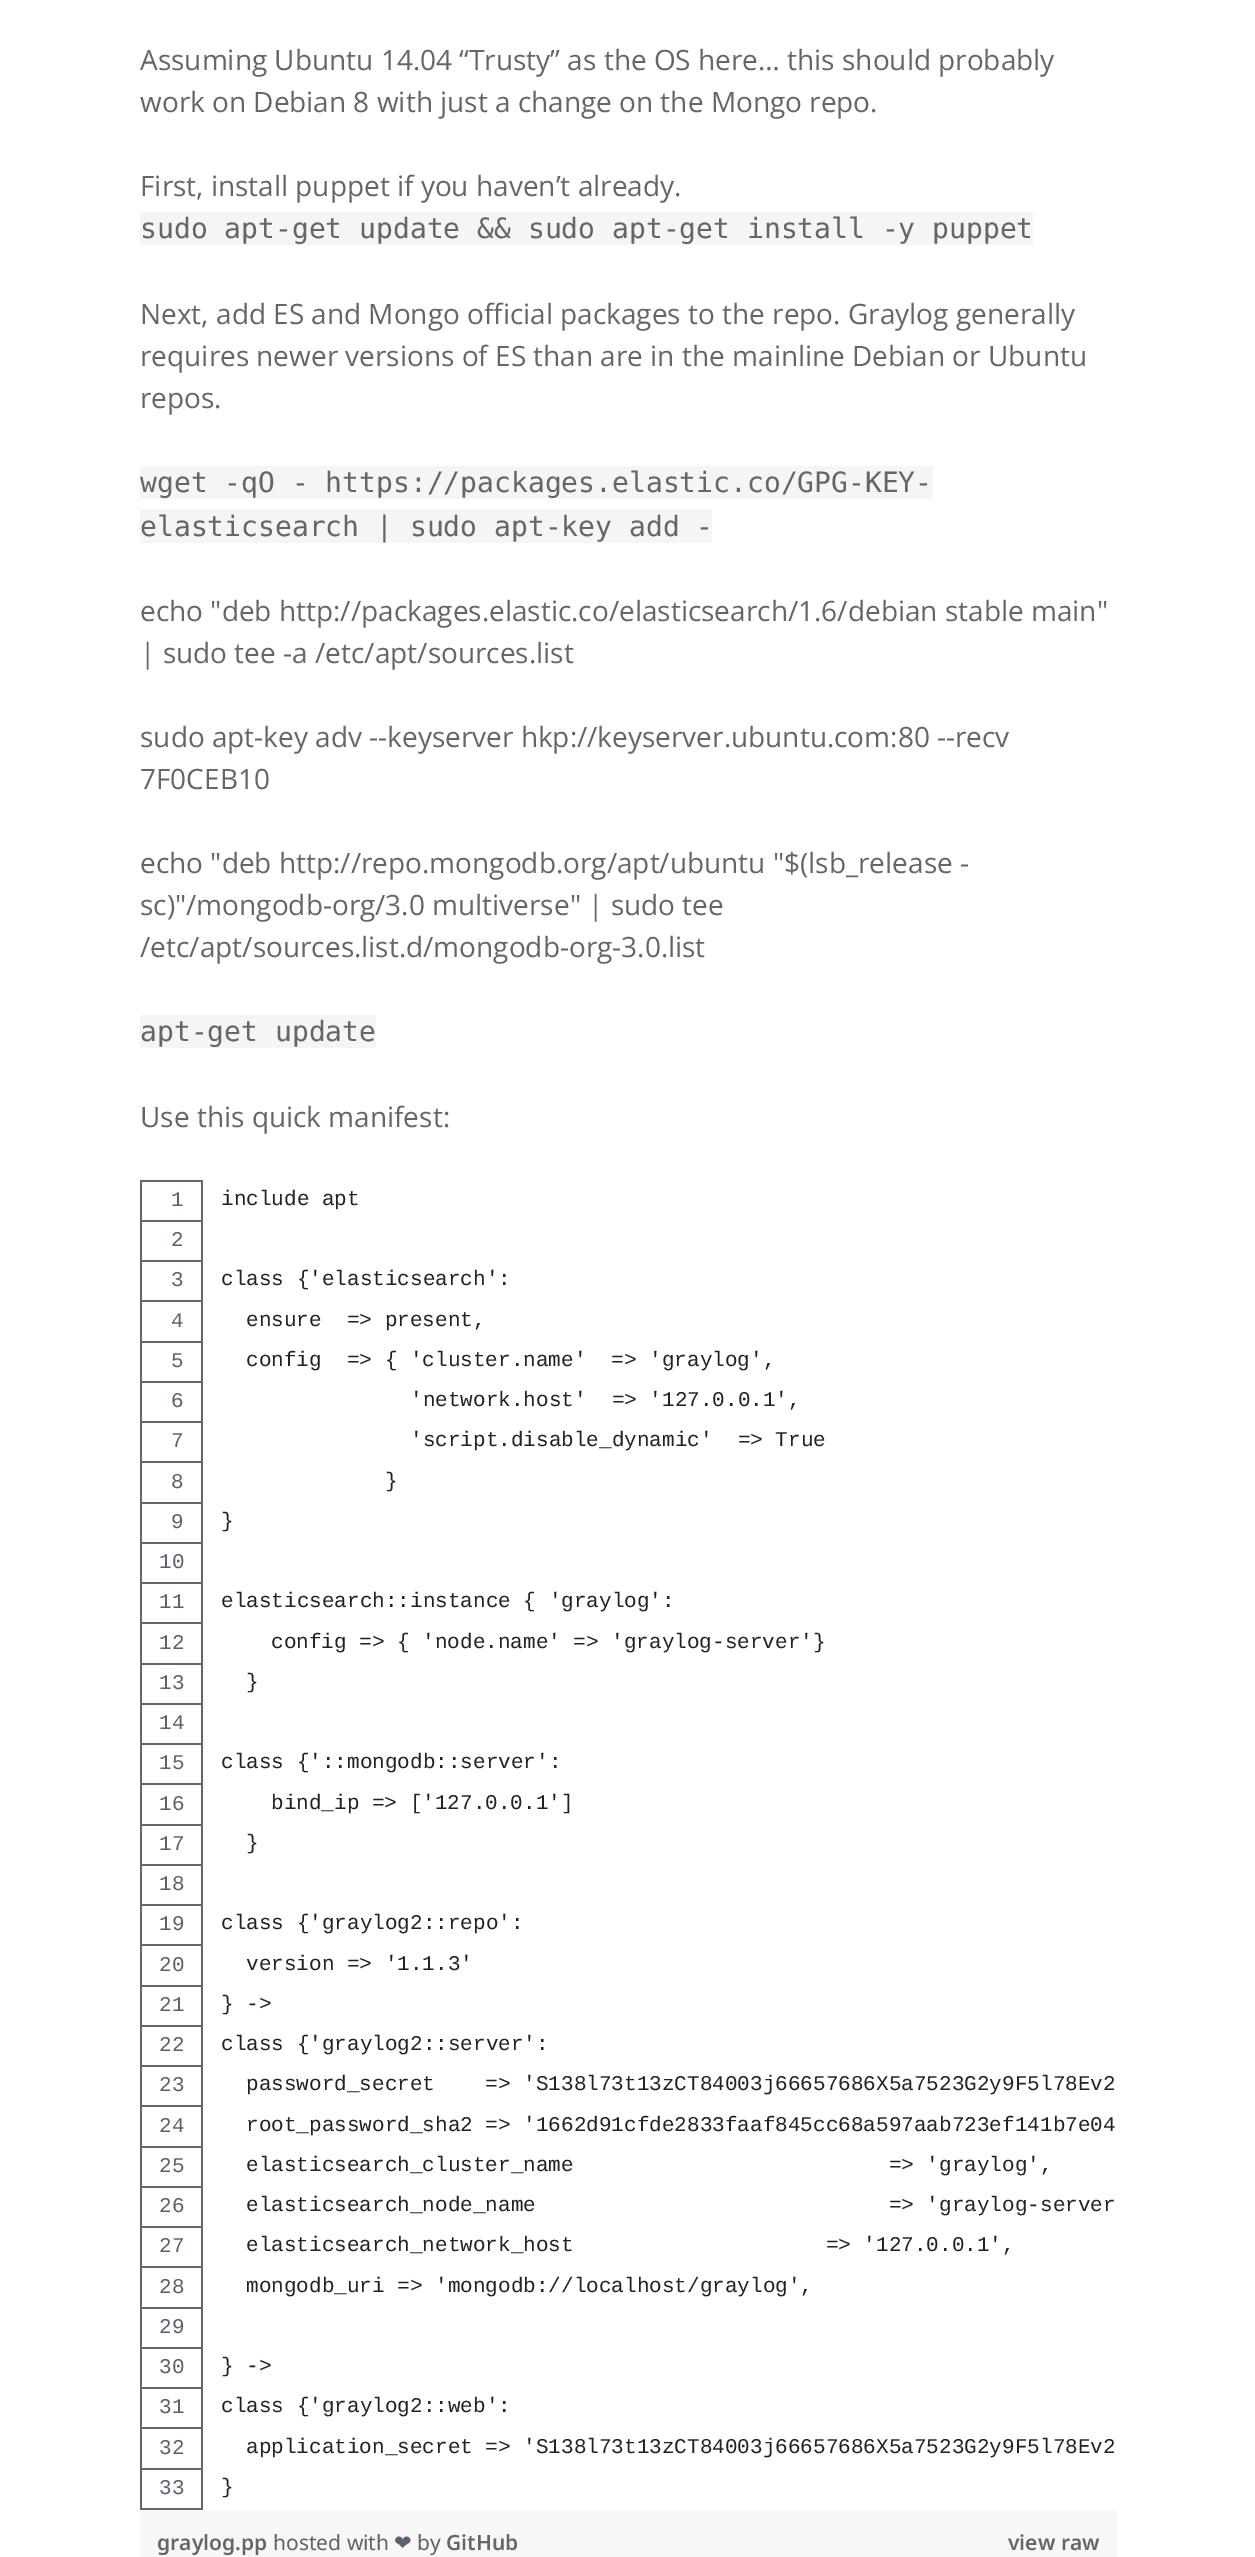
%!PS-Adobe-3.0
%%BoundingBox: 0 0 1255 2557
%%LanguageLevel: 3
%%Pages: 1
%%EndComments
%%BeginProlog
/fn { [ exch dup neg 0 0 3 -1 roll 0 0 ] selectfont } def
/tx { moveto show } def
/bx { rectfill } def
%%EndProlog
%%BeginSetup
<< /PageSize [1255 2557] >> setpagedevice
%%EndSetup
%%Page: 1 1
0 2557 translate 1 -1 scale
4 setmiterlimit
1 setgray
0 0 1255 2557 bx
/OpenSans-Regular 28 fn
0.4 setgray
(Assuming Ubuntu 14.04 “Trusty” as the OS here… this should probably) 140 70 tx
(work on Debian 8 with just a change on the Mongo repo.) 140 112 tx
(First, install puppet if you haven’t already.) 140 196 tx
0.961 setgray
140 212 893 33 bx
/DejaVuSansMono-Regular 28 fn
0.4 setgray
(sudo apt-get update && sudo apt-get install -y puppet) 140 238 tx
/OpenSans-Regular 28 fn
(Next, add ES and Mongo official packages to the repo. Graylog generally) 140 324 tx
(requires newer versions of ES than are in the mainline Debian or Ubuntu) 140 366 tx
(repos.) 140 408 tx
0.961 setgray
140 466 793 33 bx
/DejaVuSansMono-Regular 28 fn
0.4 setgray
(wget -qO - https://packages.elastic.co/GPG-KEY-) 140 492 tx
0.961 setgray
140 509 572 34 bx
0.4 setgray
(elasticsearch | sudo apt-key add -) 140 536 tx
/OpenSans-Regular 28 fn
(echo "deb http://packages.elastic.co/elasticsearch/1.6/debian stable main") 140 621 tx
(| sudo tee -a /etc/apt/sources.list) 140 663 tx
(sudo apt-key adv --keyserver hkp://keyserver.ubuntu.com:80 --recv) 140 747 tx
(7F0CEB10) 140 789 tx
(echo "deb http://repo.mongodb.org/apt/ubuntu "$\(lsb_release -) 140 873 tx
(sc\)"/mongodb-org/3.0 multiverse" | sudo tee) 140 915 tx
(/etc/apt/sources.list.d/mongodb-org-3.0.list) 140 957 tx
0.961 setgray
140 1015 236 33 bx
/DejaVuSansMono-Regular 28 fn
0.4 setgray
(apt-get update) 140 1041 tx
/OpenSans-Regular 28 fn
(Use this quick manifest:) 140 1127 tx
140 1180 63 2 bx
140 1220 63 2 bx
140 1260 63 2 bx
140 1300 63 2 bx
140 1341 63 2 bx
140 1381 63 2 bx
140 1421 63 2 bx
140 1461 63 2 bx
140 1502 63 2 bx
140 1542 63 2 bx
140 1582 63 2 bx
140 1622 63 2 bx
140 1663 63 2 bx
140 1703 63 2 bx
140 1743 63 2 bx
140 1783 63 2 bx
140 1824 63 2 bx
140 1864 63 2 bx
140 1904 63 2 bx
140 1944 63 2 bx
140 1985 63 2 bx
140 2025 63 2 bx
140 2065 63 2 bx
140 2105 63 2 bx
140 2146 63 2 bx
140 2186 63 2 bx
140 2226 63 2 bx
140 2266 63 2 bx
140 2307 63 2 bx
140 2347 63 2 bx
140 2387 63 2 bx
140 2427 63 2 bx
140 2468 63 2 bx
201 2468 2 42 bx
201 2427 2 42 bx
201 2387 2 42 bx
201 2347 2 42 bx
201 2307 2 42 bx
201 2266 2 42 bx
201 2226 2 42 bx
201 2186 2 42 bx
201 2146 2 42 bx
201 2105 2 42 bx
201 2065 2 42 bx
201 2025 2 42 bx
201 1985 2 42 bx
201 1944 2 42 bx
201 1904 2 42 bx
201 1864 2 42 bx
201 1824 2 42 bx
201 1783 2 42 bx
201 1743 2 42 bx
201 1703 2 42 bx
201 1663 2 42 bx
201 1622 2 42 bx
201 1582 2 42 bx
201 1542 2 42 bx
201 1502 2 42 bx
201 1461 2 42 bx
201 1421 2 42 bx
201 1381 2 42 bx
201 1341 2 42 bx
201 1300 2 42 bx
201 1260 2 42 bx
201 1220 2 42 bx
201 1180 2 42 bx
140 2508 63 2 bx
140 2468 2 42 bx
140 2427 2 42 bx
140 2387 2 42 bx
140 2347 2 42 bx
140 2307 2 42 bx
140 2266 2 42 bx
140 2226 2 42 bx
140 2186 2 42 bx
140 2146 2 42 bx
140 2105 2 42 bx
140 2065 2 42 bx
140 2025 2 42 bx
140 1985 2 42 bx
140 1944 2 42 bx
140 1904 2 42 bx
140 1864 2 42 bx
140 1824 2 42 bx
140 1783 2 42 bx
140 1743 2 42 bx
140 1703 2 42 bx
140 1663 2 42 bx
140 1622 2 42 bx
140 1582 2 42 bx
140 1542 2 42 bx
140 1502 2 42 bx
140 1461 2 42 bx
140 1421 2 42 bx
140 1381 2 42 bx
140 1341 2 42 bx
140 1300 2 42 bx
140 1260 2 42 bx
140 1220 2 42 bx
140 1180 2 42 bx
/LiberationMono-Regular 21 fn
0.349 0.388 0.431 setrgbcolor
(1) 171 1206 tx
0.122 0.137 0.157 setrgbcolor
(include apt) 221 1205 tx
0.349 0.388 0.431 setrgbcolor
(2) 171 1246 tx
(3) 171 1286 tx
0.122 0.137 0.157 setrgbcolor
(class {'elasticsearch':) 221 1285 tx
0.349 0.388 0.431 setrgbcolor
(4) 171 1327 tx
0.122 0.137 0.157 setrgbcolor
(ensure  => present,) 246 1326 tx
0.349 0.388 0.431 setrgbcolor
(5) 171 1367 tx
0.122 0.137 0.157 setrgbcolor
(config  => { 'cluster.name'  => 'graylog',) 246 1366 tx
0.349 0.388 0.431 setrgbcolor
(6) 171 1407 tx
0.122 0.137 0.157 setrgbcolor
('network.host'  => '127.0.0.1',) 410 1406 tx
0.349 0.388 0.431 setrgbcolor
(7) 171 1447 tx
0.122 0.137 0.157 setrgbcolor
('script.disable_dynamic'  => True) 410 1446 tx
0.349 0.388 0.431 setrgbcolor
(8) 171 1488 tx
0.122 0.137 0.157 setrgbcolor
(}) 385 1487 tx
0.349 0.388 0.431 setrgbcolor
(9) 171 1528 tx
0.122 0.137 0.157 setrgbcolor
(}) 221 1527 tx
0.349 0.388 0.431 setrgbcolor
(10) 159 1568 tx
(11) 159 1608 tx
0.122 0.137 0.157 setrgbcolor
(elasticsearch::instance { 'graylog':) 221 1607 tx
0.349 0.388 0.431 setrgbcolor
(12) 159 1649 tx
0.122 0.137 0.157 setrgbcolor
(config => { 'node.name' => 'graylog-server'}) 271 1648 tx
0.349 0.388 0.431 setrgbcolor
(13) 159 1689 tx
0.122 0.137 0.157 setrgbcolor
(}) 246 1688 tx
0.349 0.388 0.431 setrgbcolor
(14) 159 1729 tx
(15) 159 1769 tx
0.122 0.137 0.157 setrgbcolor
(class {'::mongodb::server':) 221 1768 tx
0.349 0.388 0.431 setrgbcolor
(16) 159 1810 tx
0.122 0.137 0.157 setrgbcolor
(bind_ip => ['127.0.0.1']) 271 1809 tx
0.349 0.388 0.431 setrgbcolor
(17) 159 1850 tx
0.122 0.137 0.157 setrgbcolor
(}) 246 1849 tx
0.349 0.388 0.431 setrgbcolor
(18) 159 1890 tx
(19) 159 1930 tx
0.122 0.137 0.157 setrgbcolor
(class {'graylog2::repo':) 221 1929 tx
0.349 0.388 0.431 setrgbcolor
(20) 159 1971 tx
0.122 0.137 0.157 setrgbcolor
(version => '1.1.3') 246 1970 tx
0.349 0.388 0.431 setrgbcolor
(21) 159 2011 tx
0.122 0.137 0.157 setrgbcolor
(} ->) 221 2010 tx
0.349 0.388 0.431 setrgbcolor
(22) 159 2051 tx
0.122 0.137 0.157 setrgbcolor
(class {'graylog2::server':) 221 2050 tx
0.349 0.388 0.431 setrgbcolor
(23) 159 2091 tx
0.122 0.137 0.157 setrgbcolor
(password_secret    => 'S138l73t13zCT84003j66657686X5a7523G2y9F5l78Ev2) 246 2090 tx
0.349 0.388 0.431 setrgbcolor
(24) 159 2132 tx
0.122 0.137 0.157 setrgbcolor
(root_password_sha2 => '1662d91cfde2833faaf845cc68a597aab723ef141b7e04) 246 2131 tx
0.349 0.388 0.431 setrgbcolor
(25) 159 2172 tx
0.122 0.137 0.157 setrgbcolor
(elasticsearch_cluster_name                         => 'graylog',) 246 2171 tx
0.349 0.388 0.431 setrgbcolor
(26) 159 2212 tx
0.122 0.137 0.157 setrgbcolor
(elasticsearch_node_name                            => 'graylog-server) 246 2211 tx
0.349 0.388 0.431 setrgbcolor
(27) 159 2252 tx
0.122 0.137 0.157 setrgbcolor
(elasticsearch_network_host                    => '127.0.0.1',) 246 2251 tx
0.349 0.388 0.431 setrgbcolor
(28) 159 2293 tx
0.122 0.137 0.157 setrgbcolor
(mongodb_uri => 'mongodb://localhost/graylog',) 246 2292 tx
0.349 0.388 0.431 setrgbcolor
(29) 159 2333 tx
(30) 159 2373 tx
0.122 0.137 0.157 setrgbcolor
(} ->) 221 2372 tx
0.349 0.388 0.431 setrgbcolor
(31) 159 2413 tx
0.122 0.137 0.157 setrgbcolor
(class {'graylog2::web':) 221 2412 tx
0.349 0.388 0.431 setrgbcolor
(32) 159 2454 tx
0.122 0.137 0.157 setrgbcolor
(application_secret => 'S138l73t13zCT84003j66657686X5a7523G2y9F5l78Ev2) 246 2453 tx
0.349 0.388 0.431 setrgbcolor
(33) 159 2494 tx
0.122 0.137 0.157 setrgbcolor
(}) 221 2493 tx
0.969 setgray
140 2510 977 47 bx
/NotoSans-SemiBold 21 fn
0.4 setgray
(graylog.pp) 157 2550 tx
/NotoSans-Regular 21 fn
0.349 0.388 0.431 setrgbcolor
(hosted with) 273 2550 tx
/DejaVuSans-Regular 21 fn
(❤) 394 2550 tx
/NotoSans-Regular 21 fn
(by) 417 2550 tx
/NotoSans-SemiBold 21 fn
0.4 setgray
(GitHub) 446 2550 tx
(view raw) 1008 2550 tx
showpage
%%EOF
